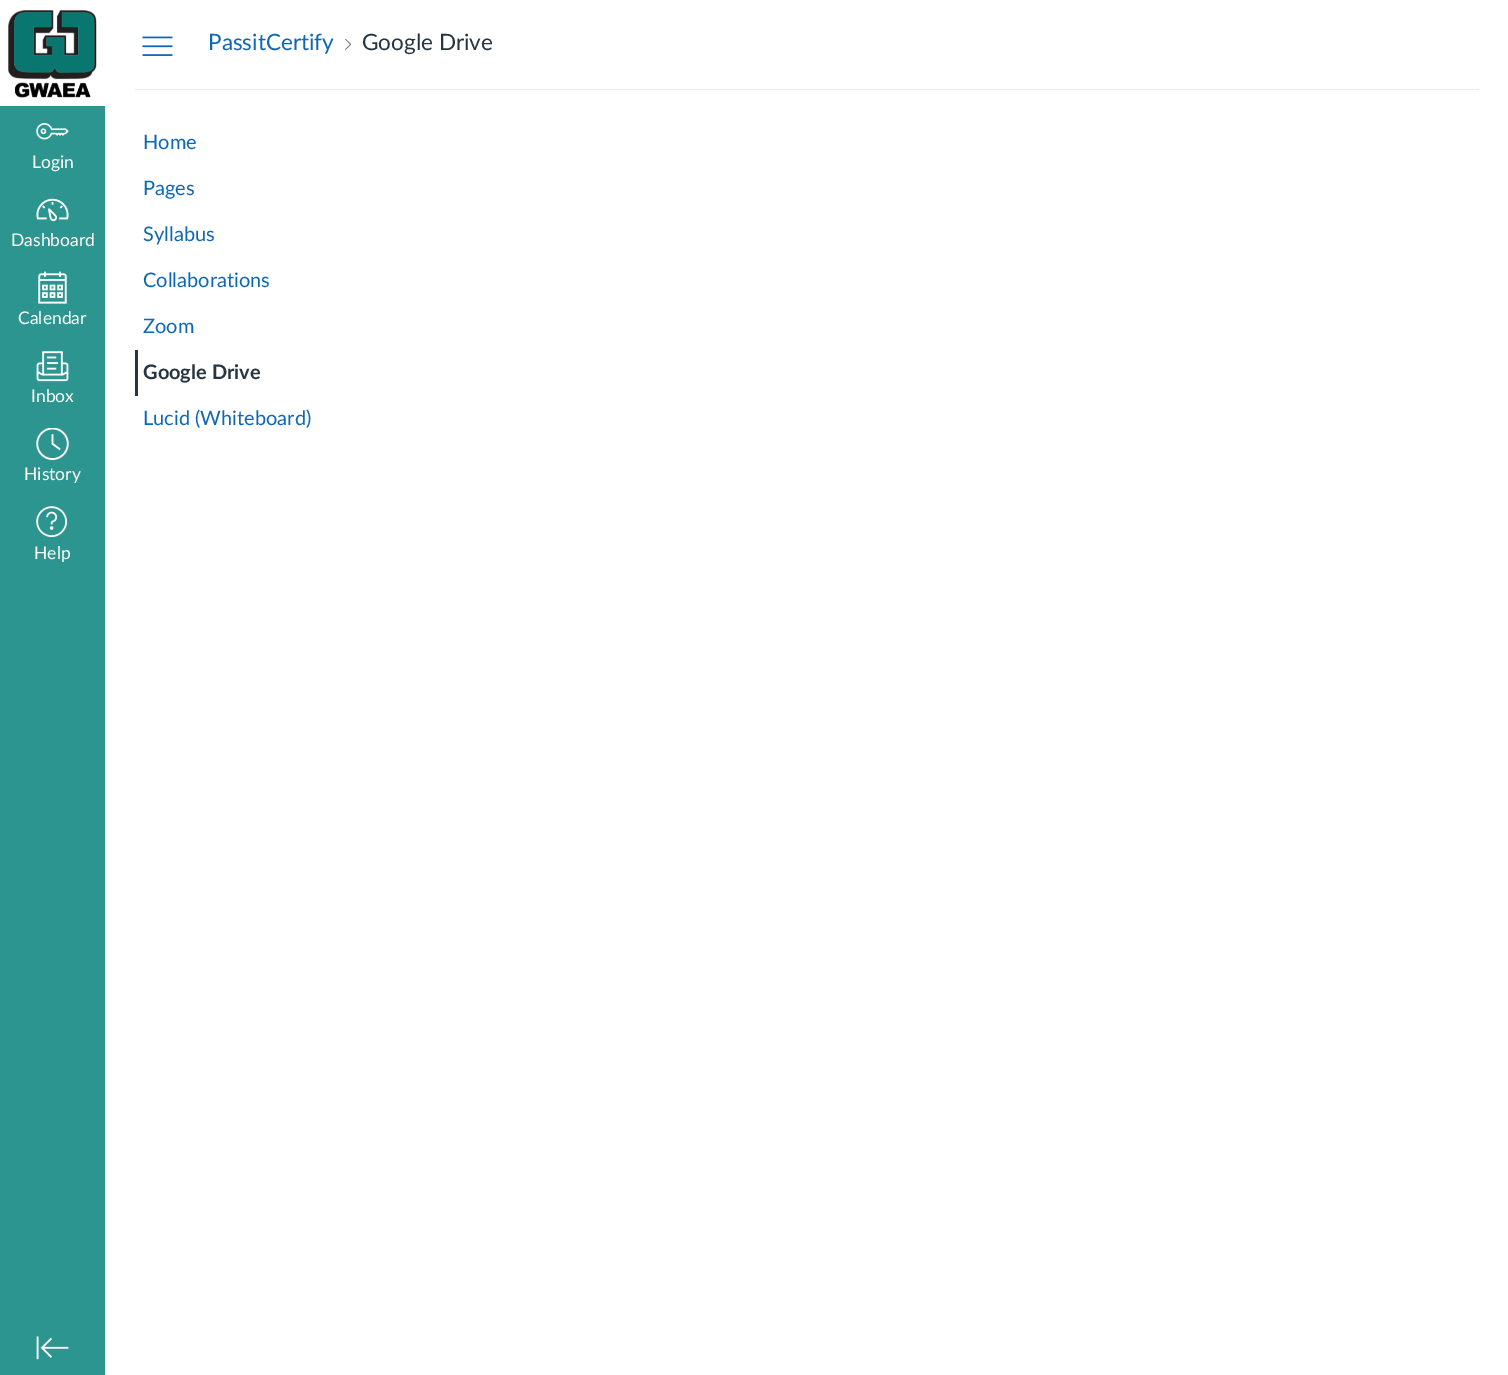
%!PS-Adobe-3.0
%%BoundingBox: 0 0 1508 1375
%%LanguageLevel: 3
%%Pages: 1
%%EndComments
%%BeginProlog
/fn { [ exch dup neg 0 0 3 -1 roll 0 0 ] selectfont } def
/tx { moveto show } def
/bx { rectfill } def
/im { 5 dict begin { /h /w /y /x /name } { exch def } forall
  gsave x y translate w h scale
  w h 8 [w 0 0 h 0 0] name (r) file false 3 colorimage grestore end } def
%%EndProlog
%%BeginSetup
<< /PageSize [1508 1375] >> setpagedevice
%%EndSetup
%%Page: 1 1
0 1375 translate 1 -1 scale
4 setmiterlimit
1 setgray
0 0 1508 1375 bx
0.173 0.584 0.561 setrgbcolor
0 106 105 1269 bx
(image0.raw) 8 9 89 89 im
(image1.raw) 36 123 33 17 im
/Lato-Regular 17.5 fn
1 setgray
(Login) 32 168 tx
(image2.raw) 36 198 33 24 im
(Dashboard) 11 246 tx
(image3.raw) 38 271 29 33 im
(Calendar) 18 324 tx
(image4.raw) 36 351 33 31 im
(Inbox) 31 402 tx
(image5.raw) 36 428 33 32 im
(History) 24 480 tx
(image6.raw) 36 506 32 32 im
(Help) 34 559 tx
(image7.raw) 36 1336 33 24 im
0.91 0.918 0.925 setrgbcolor
135 89 1344 1 bx
(image8.raw) 142 36 31 20 im
/Lato-Regular 22.5 fn
0.055 0.408 0.702 setrgbcolor
(PassitCertify) 208 50 tx
(image9.raw) 345 39 6 11 im
0.153 0.208 0.251 setrgbcolor
(Google Drive) 362 50 tx
/Lato-Regular 20 fn
0.055 0.408 0.702 setrgbcolor
(Home) 143 149 tx
(Pages) 143 195 tx
(Syllabus) 143 241 tx
(Collaborations) 143 287 tx
(Zoom) 143 333 tx
0.153 0.208 0.251 setrgbcolor
135 350 3 46 bx
/Lato-Bold 20 fn
(Google Drive) 143 379 tx
/Lato-Regular 20 fn
0.055 0.408 0.702 setrgbcolor
(Lucid \(Whiteboard\)) 143 425 tx
showpage
%%EOF
